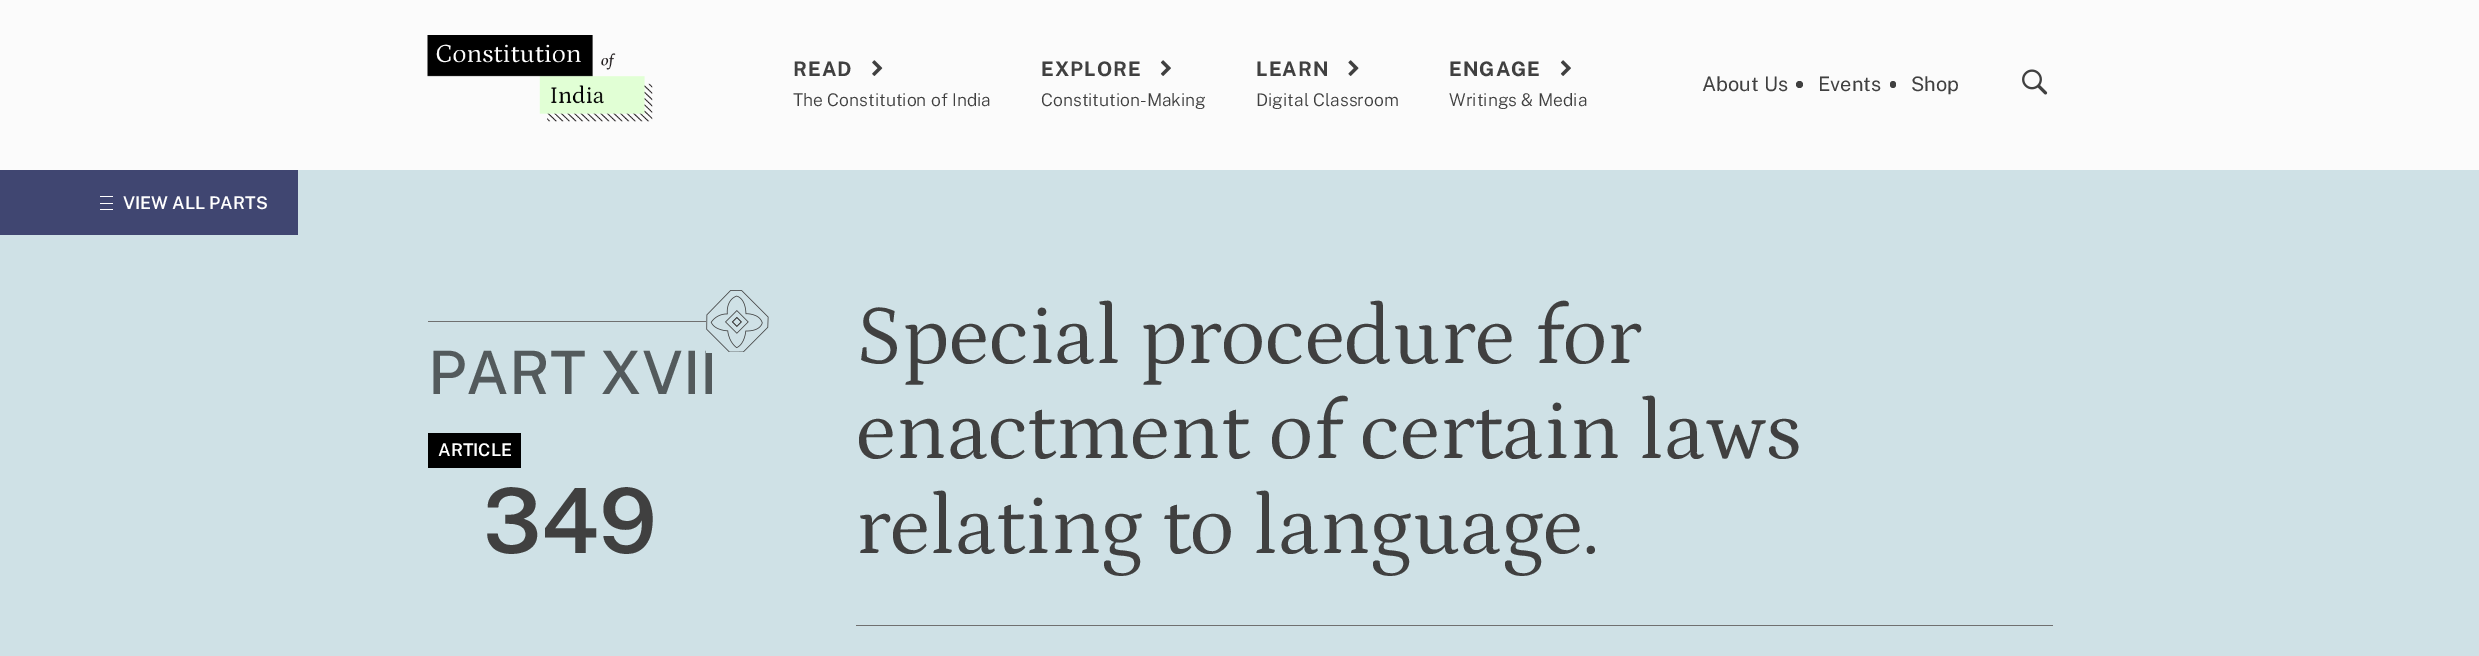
%!PS-Adobe-3.0
%%BoundingBox: 0 0 2479 656
%%LanguageLevel: 3
%%Pages: 1
%%EndComments
%%BeginProlog
/m { moveto } bind def
/f { fill } bind def
/fn { [ exch dup neg 0 0 3 -1 roll 0 0 ] selectfont } def
/tx { moveto show } def
/bx { rectfill } def
/ci { newpath 0 360 arc closepath } def
/rr { 5 dict begin { /r /h /w /y /x } { exch def } forall
  x r add y moveto x w add y 2 copy h add r arct x w add y h add x 1 index r arct
  x y h add x y r arct x y 2 copy exch w add exch r arct closepath end } def
/im { 5 dict begin { /h /w /y /x /name } { exch def } forall
  gsave x y translate w h scale
  w h 8 [w 0 0 h 0 0] name (r) file false 3 colorimage grestore end } def
%%EndProlog
%%BeginSetup
<< /PageSize [2479 656] >> setpagedevice
%%EndSetup
%%Page: 1 1
0 656 translate 1 -1 scale
4 setmiterlimit
0.984 setgray
0 0 2479 656 bx
(image0.raw) 427 35 226 87 im
/PublicSans-Bold 20 fn
0.251 setgray
793 76 m 1 0 (READ) ashow
(image1.raw) 872 60 11 16 im
/PublicSans-Light 17.5 fn
(The Constitution of India) 793 106 tx
/PublicSans-Bold 20 fn
1041 76 m 1 0 (EXPLORE) ashow
(image2.raw) 1160 60 11 16 im
/PublicSans-Light 17.5 fn
(Constitution-Making) 1041 106 tx
/PublicSans-Bold 20 fn
1256 76 m 1 0 (LEARN) ashow
(image3.raw) 1348 60 11 16 im
/PublicSans-Light 17.5 fn
(Digital Classroom) 1256 106 tx
/PublicSans-Bold 20 fn
1449 76 m 1 0 (ENGAGE) ashow
(image2.raw) 1560 60 11 16 im
/PublicSans-Light 17.5 fn
(Writings & Media) 1449 106 tx
/PublicSans-Regular 20 fn
(About Us) 1702 91 tx
1799.5 84.5 3.5 ci f
(Events) 1818 91 tx
1890 81 6 7 3 rr f
(Shop) 1911 91 tx
(image4.raw) 2022 69 26 26 im
0.812 0.882 0.902 setrgbcolor
0 170 2479 486 bx
0.251 0.275 0.443 setrgbcolor
0 170 298 65 bx
1 setgray
100 196 13 1 bx
100 203 13 1 bx
100 209 13 1 bx
/PublicSans-SemiBold 17.5 fn
(VIEW ALL PARTS) 123 209 tx
0.439 setgray
428 321 278 1 bx
/PublicSans-Medium 60 fn
0.325 0.353 0.361 setrgbcolor
(PART XVII) 428 394 tx
0.812 0.882 0.902 setrgbcolor
706 350 6 3 bx
(image5.raw) 706 290 63 62 im
0 setgray
428 433 93 35 bx
/PublicSans-SemiBold 17.5 fn
1 setgray
(ARTICLE) 438 456 tx
/PublicSans-SemiBold 90 fn
0.251 setgray
(349) 483 553 tx
/Petrona-Regular 85 fn
(Special procedure for) 856 363 tx
(enactment of certain laws) 856 458 tx
(relating to language.) 856 553 tx
0.439 setgray
856 625 1197 1 bx
showpage
%%EOF
